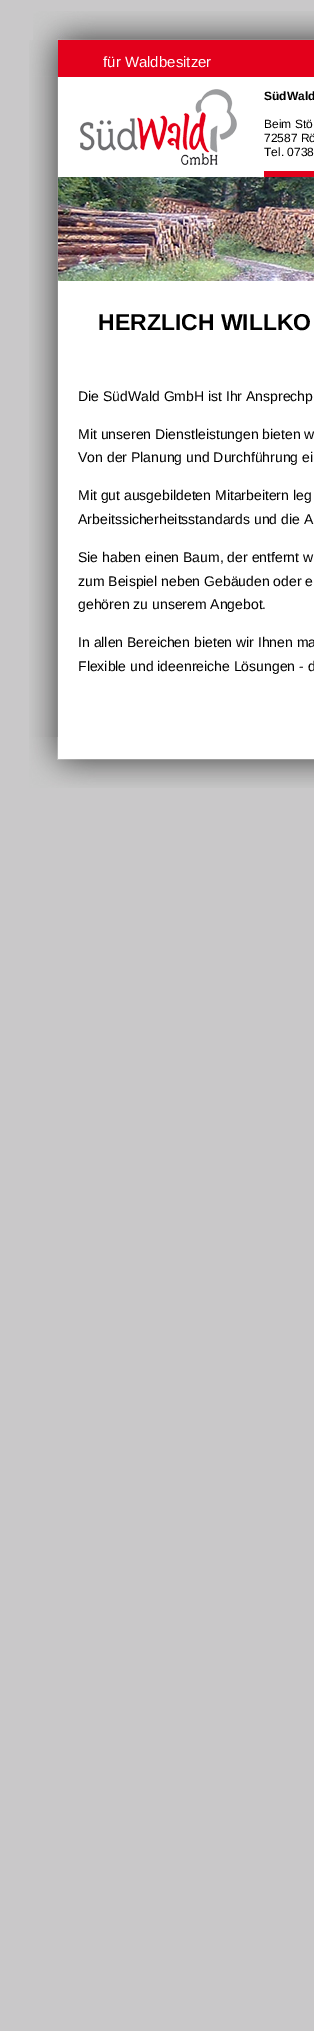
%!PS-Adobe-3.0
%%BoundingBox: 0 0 314 2031
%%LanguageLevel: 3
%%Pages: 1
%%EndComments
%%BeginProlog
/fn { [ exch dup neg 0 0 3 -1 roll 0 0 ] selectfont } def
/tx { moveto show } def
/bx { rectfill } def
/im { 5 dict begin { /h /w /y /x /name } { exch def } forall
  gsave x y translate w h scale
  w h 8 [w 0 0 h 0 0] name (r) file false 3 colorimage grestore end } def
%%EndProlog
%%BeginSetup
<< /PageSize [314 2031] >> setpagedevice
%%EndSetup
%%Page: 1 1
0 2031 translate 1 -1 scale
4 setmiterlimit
0.788 0.784 0.788 setrgbcolor
0 0 314 2031 bx
(image0.raw) 33 11 281 29 im
(image1.raw) 29 40 29 37 im
0.89 0 0.106 setrgbcolor
59 40 196 30 bx
255 40 1 37 bx
58 70 256 7 bx
58 40 1 37 bx
/LiberationSans-Regular 15 fn
1 setgray
(für Waldbesitzer) 103 67 tx
0.89 0 0.106 setrgbcolor
257 40 57 30 bx
256 40 1 37 bx
(image2.raw) 29 77 285 660 im
(image3.raw) 80 89 157 76 im
/LiberationSans-Bold 12 fn
0 setgray
(SüdWald) 264 100 tx
/LiberationSans-Regular 12 fn
(Beim Stö) 264 128 tx
(72587 Rö) 264 142 tx
(Tel. 0738) 264 156 tx
0.89 0 0.106 setrgbcolor
264 171 50 6 bx
(image4.raw) 58 177 256 104 im
/LiberationSans-Bold 23 fn
0 setgray
(HERZLICH WILLKO) 98 330 tx
/LiberationSans-Regular 14 fn
(Die SüdWald GmbH ist Ihr Ansprechp) 78 401 tx
(Mit unseren Dienstleistungen bieten w) 78 439 tx
(Von der Planung und Durchführung ei) 78 462 tx
(Mit gut ausgebildeten Mitarbeitern leg) 78 500 tx
(Arbeitssicherheitsstandards und die A) 78 524 tx
(Sie haben einen Baum, der entfernt w) 78 562 tx
(zum Beispiel neben Gebäuden oder e) 78 586 tx
(gehören zu unserem Angebot.) 78 609 tx
(In allen Bereichen bieten wir Ihnen ma) 78 647 tx
(Flexible und ideenreiche Lösungen - d) 78 671 tx
(image5.raw) 29 737 285 51 im
showpage
%%EOF
